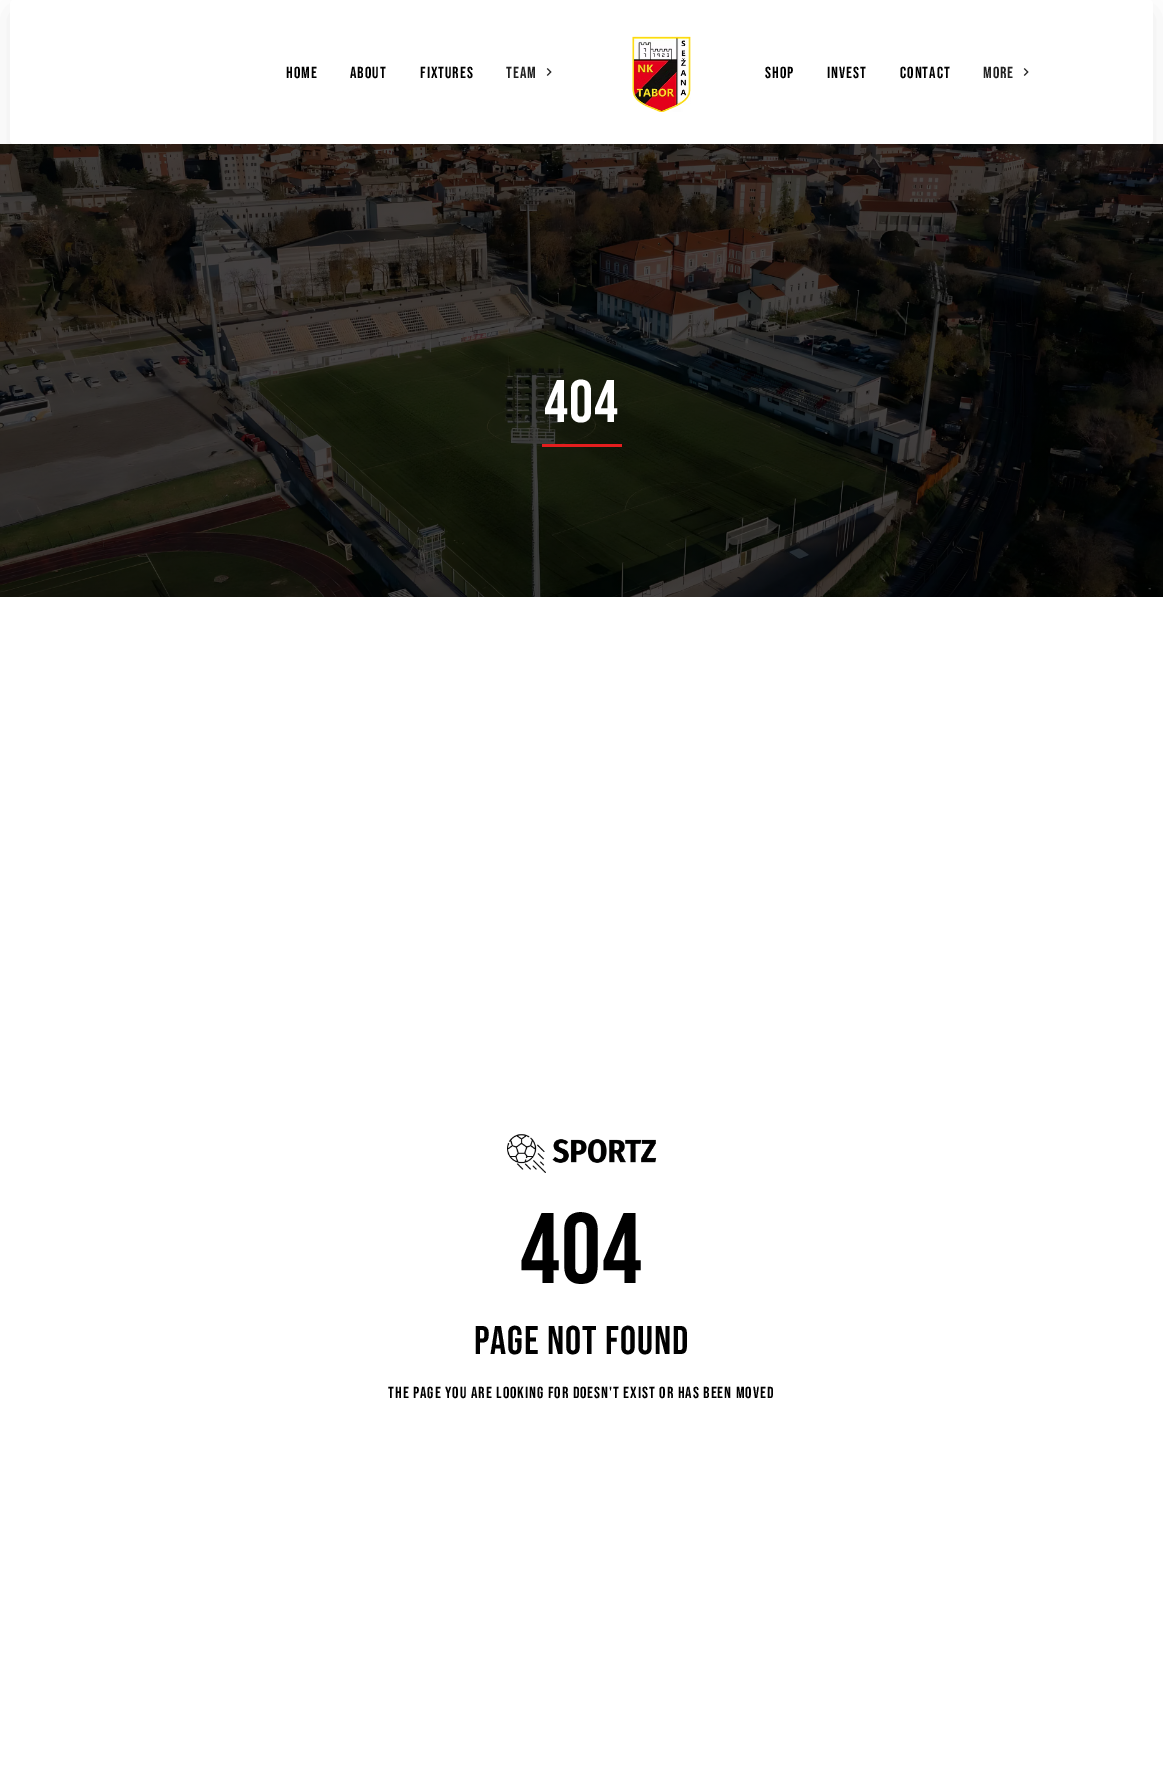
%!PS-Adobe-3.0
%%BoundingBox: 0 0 1163 1784
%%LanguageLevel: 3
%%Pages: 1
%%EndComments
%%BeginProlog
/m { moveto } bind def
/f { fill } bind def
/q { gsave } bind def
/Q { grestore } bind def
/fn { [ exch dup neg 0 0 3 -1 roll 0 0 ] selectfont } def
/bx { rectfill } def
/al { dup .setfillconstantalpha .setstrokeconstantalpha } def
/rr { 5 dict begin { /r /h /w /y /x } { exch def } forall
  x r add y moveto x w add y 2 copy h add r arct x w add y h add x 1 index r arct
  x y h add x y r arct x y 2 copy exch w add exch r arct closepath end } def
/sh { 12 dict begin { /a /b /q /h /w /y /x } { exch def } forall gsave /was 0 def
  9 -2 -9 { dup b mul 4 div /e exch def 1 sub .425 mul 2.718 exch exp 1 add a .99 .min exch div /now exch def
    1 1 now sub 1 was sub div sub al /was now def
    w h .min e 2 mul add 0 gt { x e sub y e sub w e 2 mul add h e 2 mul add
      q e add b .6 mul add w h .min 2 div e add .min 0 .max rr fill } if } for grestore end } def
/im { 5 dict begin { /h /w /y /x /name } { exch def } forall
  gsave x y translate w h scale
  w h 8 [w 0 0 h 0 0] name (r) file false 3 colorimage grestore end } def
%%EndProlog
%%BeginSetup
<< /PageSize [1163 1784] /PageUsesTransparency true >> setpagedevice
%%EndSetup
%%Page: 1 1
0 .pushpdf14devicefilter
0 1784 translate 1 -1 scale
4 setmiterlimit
1 setgray
0 0 1163 1784 bx
(image2.raw) 0 144 1163 453 im
q
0 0 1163 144 rectclip
0 setgray
10 10 1143 144 4 14 0.07 sh
Q
10 0 1143 144 4 rr f
/BebasNeue-Regular 16 fn
0 setgray
286 78 m 1 0 (HOME) ashow
350 78 m 1 0 (ABOUT) ashow
420 78 m 1 0 (FIXTURES) ashow
0.133 setgray
506 78 m 1 0 (TEAM) ashow
(image0.raw) 546 68 6 8 im
(image1.raw) 632 36 59 76 im
0 setgray
765 78 m 1 0 (SHOP) ashow
827 78 m 1 0 (INVEST) ashow
900 78 m 1 0 (CONTACT) ashow
0.133 setgray
983 78 m 1 0 (MORE) ashow
(image0.raw) 1023 68 6 8 im
/BebasNeue-Regular 60 fn
1 setgray
544 422 m 1 0 (404) ashow
0.894 0.118 0.118 setrgbcolor
542 444 80 3 bx
(image3.raw) 507 1134 150 39 im
/BebasNeue-Regular 100 fn
0 setgray
520 1283 m 1 0 (404) ashow
/BebasNeue-Regular 40 fn
474 1354 m 1 0 (Page Not Found) ashow
/BebasNeue-Regular 16 fn
388 1398 m 1 0 (The page you are looking for doesn't exist or has been moved) ashow
.poppdf14devicefilter showpage
%%EOF
